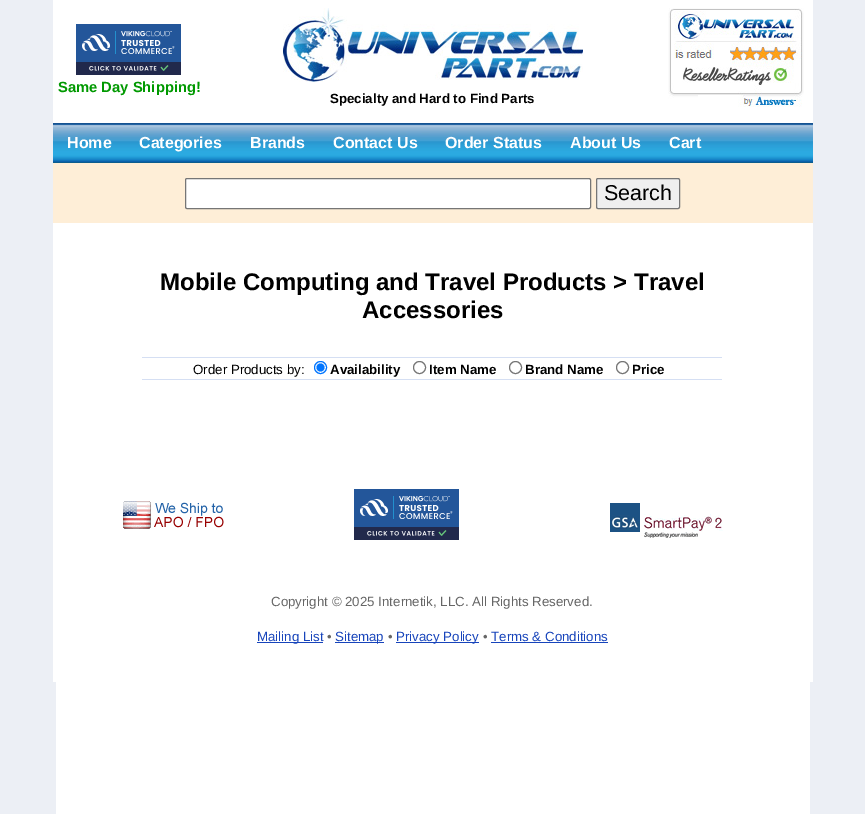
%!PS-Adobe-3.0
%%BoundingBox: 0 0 865 814
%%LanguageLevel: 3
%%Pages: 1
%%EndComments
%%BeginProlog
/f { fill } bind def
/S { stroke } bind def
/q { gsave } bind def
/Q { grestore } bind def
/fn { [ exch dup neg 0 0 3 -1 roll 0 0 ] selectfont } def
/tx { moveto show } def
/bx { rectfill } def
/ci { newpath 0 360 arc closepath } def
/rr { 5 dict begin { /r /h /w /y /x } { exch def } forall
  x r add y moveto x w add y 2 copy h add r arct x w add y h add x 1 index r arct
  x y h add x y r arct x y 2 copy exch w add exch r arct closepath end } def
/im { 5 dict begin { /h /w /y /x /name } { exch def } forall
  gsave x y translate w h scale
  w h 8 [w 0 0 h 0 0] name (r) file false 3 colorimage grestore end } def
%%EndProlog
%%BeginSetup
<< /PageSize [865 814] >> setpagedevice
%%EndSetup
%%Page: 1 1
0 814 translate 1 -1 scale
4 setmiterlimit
0.925 0.937 0.961 setrgbcolor
0 0 865 814 bx
1 setgray
56 682 754 132 bx
53 0 760 682 bx
(image0.raw) 76 24 105 51 im
/LiberationSans-Bold 14.75 fn
0 0.6 0 setrgbcolor
(Same Day Shipping!) 58 92 tx
(image1.raw) 668 8 136 99 im
(image2.raw) 283 8 300 74 im
/LiberationSans-Bold 13.3 fn
0 setgray
(Specialty and Hard to Find Parts) 330 103 tx
(image3.raw) 53 123 760 40 im
/LiberationSans-Bold 16 fn
1 setgray
(Home) 67 148 tx
(Categories) 139 148 tx
(Brands) 250 148 tx
(Contact Us) 333 148 tx
(Order Status) 445 148 tx
(About Us) 570 148 tx
(Cart) 669 148 tx
0.996 0.933 0.843 setrgbcolor
53 163 760 60 bx
1 setgray
185.5 178.5 405 30 1.5 rr q f Q
0.463 setgray
S
0.937 setgray
596.5 178.5 83 30 1.5 rr q f Q
0.463 setgray
S
/LiberationSans-Regular 21.5 fn
0 setgray
(Search) 604 200 tx
/LiberationSans-Bold 24 fn
(Mobile Computing and Travel Products > Travel) 160 290 tx
(Accessories) 362 318 tx
0.835 0.875 0.953 setrgbcolor
142 357 580 1 bx
/LiberationSans-Regular 13.3 fn
0 setgray
(Order Products by:) 193 374 tx
0 0.459 1 setrgbcolor
320.5 367.5 6 ci S
320.5 367.5 4 ci f
/LiberationSans-Bold 13.3 fn
0 setgray
(Availability) 330 374 tx
0.463 setgray
419.5 367.5 6 ci S
0 setgray
(Item Name) 429 374 tx
0.463 setgray
515.5 367.5 6 ci S
0 setgray
(Brand Name) 525 374 tx
0.463 setgray
622.5 367.5 6 ci S
0 setgray
(Price) 632 374 tx
0.835 0.875 0.953 setrgbcolor
142 379 580 1 bx
(image4.raw) 123 501 101 28 im
(image0.raw) 354 489 105 51 im
(image5.raw) 610 503 113 35 im
/LiberationSans-Regular 13.3 fn
0.4 setgray
(Copyright © 2025 Internetik, LLC. All Rights Reserved.) 271 606 tx
0.09 0.267 0.733 setrgbcolor
257 642 66 1 bx
(Mailing List) 257 641 tx
0.4 setgray
(•) 327 641 tx
0.09 0.267 0.733 setrgbcolor
335 642 49 1 bx
(Sitemap) 335 641 tx
0.4 setgray
(•) 388 641 tx
0.09 0.267 0.733 setrgbcolor
396 642 83 1 bx
(Privacy Policy) 396 641 tx
0.4 setgray
(•) 483 641 tx
0.09 0.267 0.733 setrgbcolor
(Terms & Conditions) 491 641 tx
491 642 117 1 bx
showpage
%%EOF
